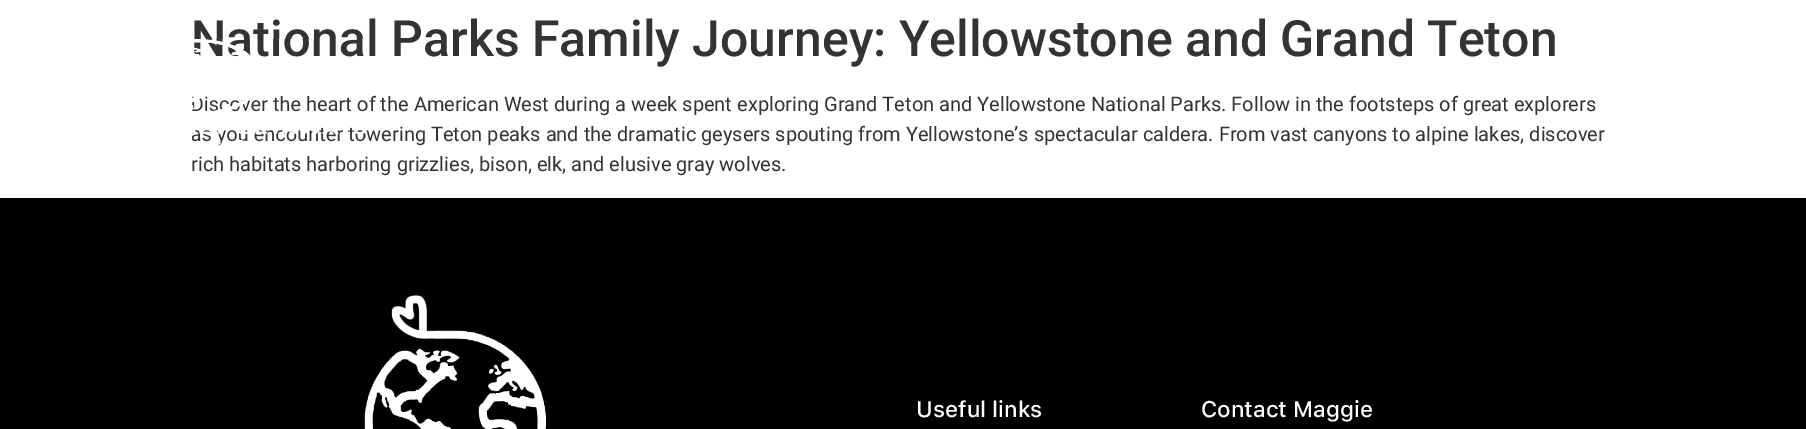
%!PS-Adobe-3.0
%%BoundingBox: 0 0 1806 429
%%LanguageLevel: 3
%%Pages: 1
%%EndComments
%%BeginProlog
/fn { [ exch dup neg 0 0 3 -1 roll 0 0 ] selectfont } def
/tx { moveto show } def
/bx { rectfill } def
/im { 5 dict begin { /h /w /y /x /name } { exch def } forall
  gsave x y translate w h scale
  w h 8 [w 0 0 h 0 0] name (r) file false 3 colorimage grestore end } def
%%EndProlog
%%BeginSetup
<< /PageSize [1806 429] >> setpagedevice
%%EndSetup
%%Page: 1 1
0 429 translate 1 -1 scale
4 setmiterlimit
1 setgray
0 0 1806 429 bx
/Roboto-Medium 50 fn
0.2 setgray
(National Parks Family Journey: Yellowstone and Grand Teton) 191 56 tx
/Roboto-Regular 20 fn
(Discover the heart of the American West during a week spent exploring Grand Teton and Yellowstone National Parks. Follow in the footsteps of great explorers) 191 111 tx
(as you encounter towering Teton peaks and the dramatic geysers spouting from Yellowstone’s spectacular caldera. From vast canyons to alpine lakes, discover) 191 141 tx
(rich habitats harboring grizzlies, bison, elk, and elusive gray wolves.) 191 171 tx
(image0.raw) 192 39 173 107 im
0 setgray
0 198 1806 231 bx
(image1.raw) 364 295 182 134 im
/SFProText-Medium 22.5 fn
1 setgray
(Useful links) 916 417 tx
(Contact Maggie) 1201 417 tx
showpage
%%EOF
